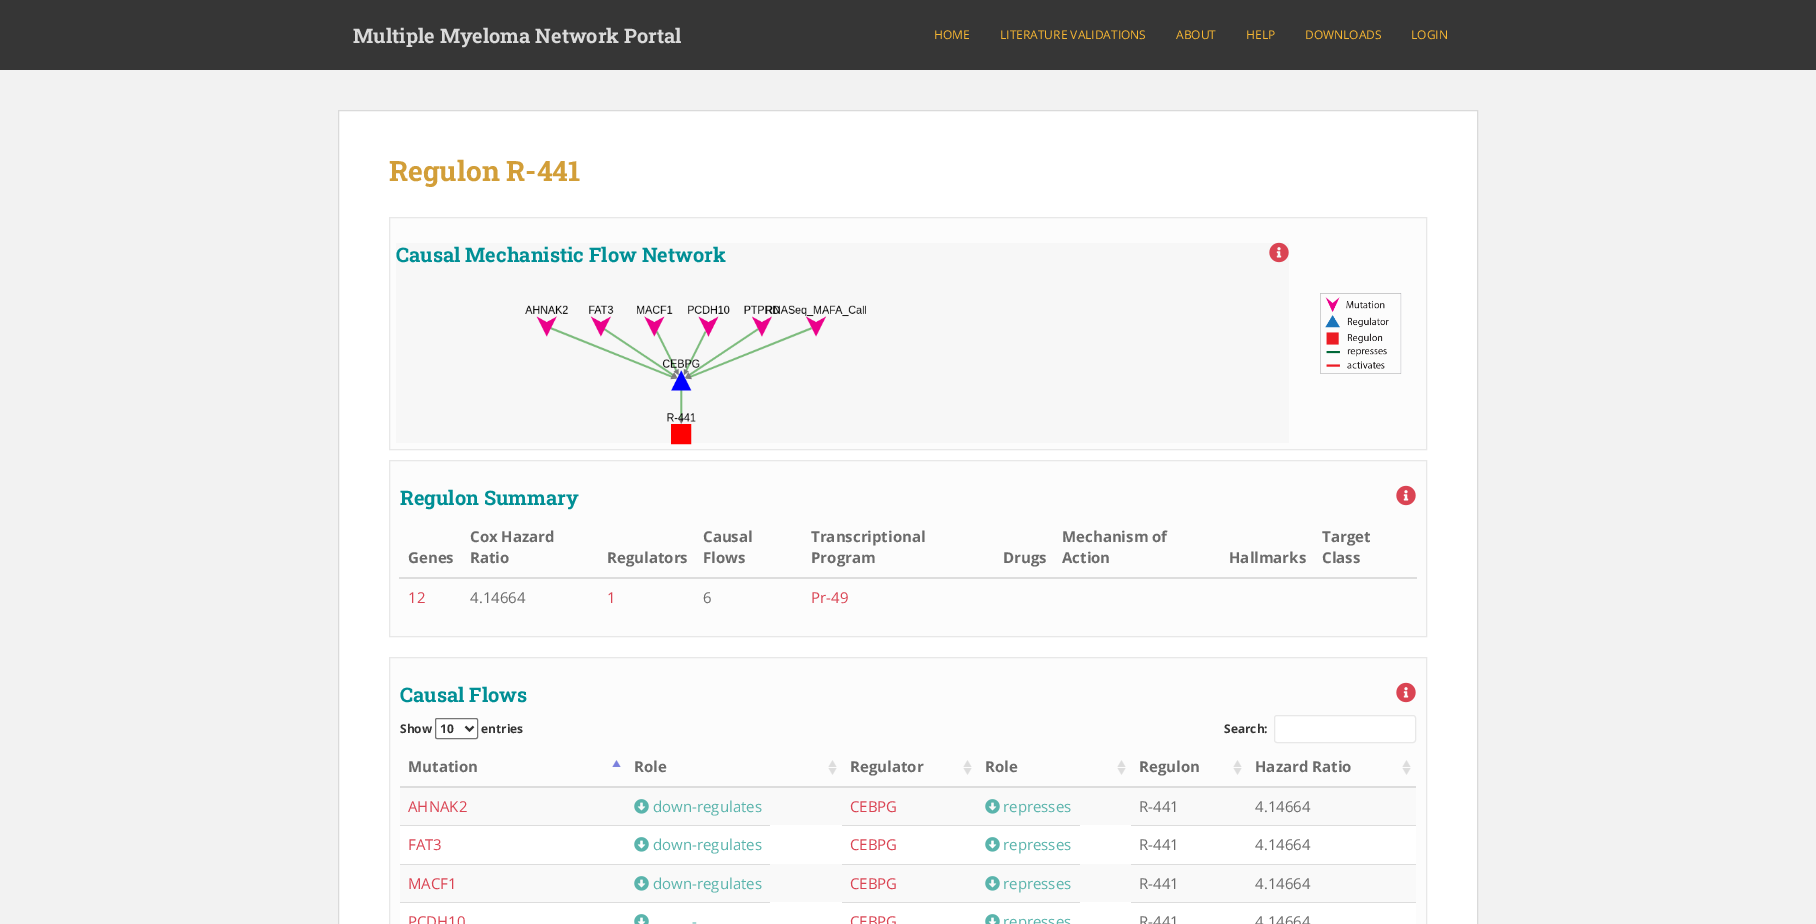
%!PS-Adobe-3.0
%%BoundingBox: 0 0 1816 924
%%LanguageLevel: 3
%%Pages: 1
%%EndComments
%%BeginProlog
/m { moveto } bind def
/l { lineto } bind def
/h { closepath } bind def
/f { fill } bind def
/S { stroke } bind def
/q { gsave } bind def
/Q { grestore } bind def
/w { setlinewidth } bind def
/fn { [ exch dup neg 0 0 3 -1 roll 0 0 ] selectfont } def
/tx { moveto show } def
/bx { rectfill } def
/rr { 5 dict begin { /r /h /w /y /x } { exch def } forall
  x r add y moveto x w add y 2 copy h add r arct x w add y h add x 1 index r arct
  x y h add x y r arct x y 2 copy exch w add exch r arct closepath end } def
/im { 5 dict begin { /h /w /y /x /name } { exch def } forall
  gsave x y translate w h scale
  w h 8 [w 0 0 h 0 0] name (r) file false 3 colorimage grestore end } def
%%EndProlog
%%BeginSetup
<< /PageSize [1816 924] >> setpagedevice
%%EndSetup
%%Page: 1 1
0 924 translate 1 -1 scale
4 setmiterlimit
0.949 setgray
0 0 1816 924 bx
0.212 setgray
0 0 1816 70 bx
/RobotoSlab-Bold 20 fn
0.855 setgray
(Multiple Myeloma Network Portal) 353 43 tx
/OpenSans-Regular 12 fn
0.969 0.718 0.2 setrgbcolor
(HOME) 934 39 tx
(LITERATURE VALIDATIONS) 1000 39 tx
(ABOUT) 1176 39 tx
(HELP) 1246 39 tx
(DOWNLOADS) 1305 39 tx
(LOGIN) 1411 39 tx
1 setgray
338.5 110.5 m 1477.5 110.5 l 1477.5 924.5 l 338.5 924.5 l h q f Q
0.855 setgray
S
/RobotoSlab-Bold 28 fn
0.824 0.62 0.22 setrgbcolor
(Regulon R-441) 389 181 tx
0.988 setgray
389.5 217.5 m 1426.5 217.5 l 1426.5 449.5 l 389.5 449.5 l h q f Q
0.91 setgray
S
0.969 setgray
396 243 893 200 bx
/RobotoSlab-Bold 20 fn
0 0.561 0.584 setrgbcolor
(Causal Mechanistic Flow Network) 396 262 tx
(image0.raw) 525 305 341 140 im
(image1.raw) 1269 242 20 21 im
(image2.raw) 1320 293 82 81 im
0.988 setgray
389.5 460.5 m 1426.5 460.5 l 1426.5 636.5 l 389.5 636.5 l h q f Q
0.91 setgray
S
0 0.561 0.584 setrgbcolor
(Regulon Summary) 400 505 tx
(image3.raw) 1396 485 20 21 im
/OpenSans-Bold 15 fn
0.42 setgray
(Genes) 408 563 tx
(Cox Hazard) 470 542 tx
(Ratio) 470 563 tx
(Regulators) 607 563 tx
(Causal) 703 542 tx
(Flows) 703 563 tx
(Transcriptional) 811 542 tx
(Program) 811 563 tx
(Drugs) 1003 563 tx
(Mechanism of) 1062 542 tx
(Action) 1062 563 tx
(Hallmarks) 1229 563 tx
0.867 setgray
399 577 1018 2 bx
0.42 setgray
(Target) 1322 542 tx
(Class) 1322 563 tx
/OpenSans-Regular 15 fn
0.855 0.267 0.325 setrgbcolor
(12) 408 603 tx
0.42 setgray
(4.14664) 470 603 tx
0.855 0.267 0.325 setrgbcolor
(1) 607 603 tx
0.42 setgray
(6) 703 603 tx
0.855 0.267 0.325 setrgbcolor
(Pr-49) 811 603 tx
0.988 setgray
389.5 657.5 m 1426.5 657.5 l 1426.5 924.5 l 389.5 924.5 l h q f Q
0.91 setgray
S
/RobotoSlab-Bold 20 fn
0 0.561 0.584 setrgbcolor
(Causal Flows) 400 702 tx
(image3.raw) 1396 682 20 21 im
/OpenSans-Bold 12 fn
0.2 setgray
(Show) 400 733 tx
1 setgray
435.5 718.5 42 20 1.5 rr q f Q
0.463 setgray
S
0.2 setgray
2 w
465.5 726.5 m 469.5 730.5 l 473.5 726.5 l S
(10) 440 733 tx
(entries) 481 733 tx
(Search:) 1224 733 tx
1 setgray
1274.5 715.5 141 27 2.5 rr q f Q
0.91 setgray
1 w
S
(image4.raw) 612 760 9 7 im
0.867 setgray
400 786 1016 2 bx
/OpenSans-Bold 15 fn
0.42 setgray
(Mutation) 408 772 tx
(image5.raw) 828 760 9 15 im
(Role) 634 772 tx
(image5.raw) 963 760 9 15 im
(Regulator) 850 772 tx
(image5.raw) 1117 760 9 15 im
(Role) 985 772 tx
(image5.raw) 1233 760 9 15 im
(Regulon) 1139 772 tx
(image5.raw) 1402 760 9 15 im
(Hazard Ratio) 1255 772 tx
0.976 setgray
400 788 1016 37 bx
/OpenSans-Regular 15 fn
0.855 0.267 0.325 setrgbcolor
(AHNAK2) 408 812 tx
(image6.raw) 634 799 15 15 im
0.353 0.706 0.675 setrgbcolor
(down-regulates) 653 812 tx
0.855 0.267 0.325 setrgbcolor
(CEBPG) 850 812 tx
(image6.raw) 985 799 15 15 im
0.353 0.706 0.675 setrgbcolor
(represses) 1003 812 tx
0.42 setgray
(R-441) 1139 812 tx
(4.14664) 1255 812 tx
1 setgray
400 825 1016 39 bx
0.867 setgray
400 825 370 1 bx
0.855 0.267 0.325 setrgbcolor
(FAT3) 408 850 tx
(image7.raw) 634 837 15 15 im
0.353 0.706 0.675 setrgbcolor
(down-regulates) 653 850 tx
0.867 setgray
842 825 238 1 bx
0.855 0.267 0.325 setrgbcolor
(CEBPG) 850 850 tx
(image7.raw) 985 837 15 15 im
0.353 0.706 0.675 setrgbcolor
(represses) 1003 850 tx
0.867 setgray
1131 825 285 1 bx
0.42 setgray
(R-441) 1139 850 tx
(4.14664) 1255 850 tx
0.976 setgray
400 864 1016 38 bx
0.867 setgray
400 864 370 1 bx
0.855 0.267 0.325 setrgbcolor
(MACF1) 408 889 tx
(image6.raw) 634 876 15 15 im
0.353 0.706 0.675 setrgbcolor
(down-regulates) 653 889 tx
0.867 setgray
842 864 238 1 bx
0.855 0.267 0.325 setrgbcolor
(CEBPG) 850 889 tx
(image6.raw) 985 876 15 15 im
0.353 0.706 0.675 setrgbcolor
(represses) 1003 889 tx
0.867 setgray
1131 864 285 1 bx
0.42 setgray
(R-441) 1139 889 tx
(4.14664) 1255 889 tx
1 setgray
400 902 1016 22 bx
0.867 setgray
400 902 370 1 bx
0.855 0.267 0.325 setrgbcolor
(PCDH10) 408 927 tx
(image8.raw) 634 914 15 10 im
0.353 0.706 0.675 setrgbcolor
(-) 692 927 tx
0.867 setgray
842 902 238 1 bx
0.855 0.267 0.325 setrgbcolor
(CEBPG) 850 927 tx
(image8.raw) 985 914 15 10 im
0.353 0.706 0.675 setrgbcolor
(represses) 1003 927 tx
0.867 setgray
1131 902 285 1 bx
0.42 setgray
(R-441) 1139 927 tx
(4.14664) 1255 927 tx
showpage
%%EOF
